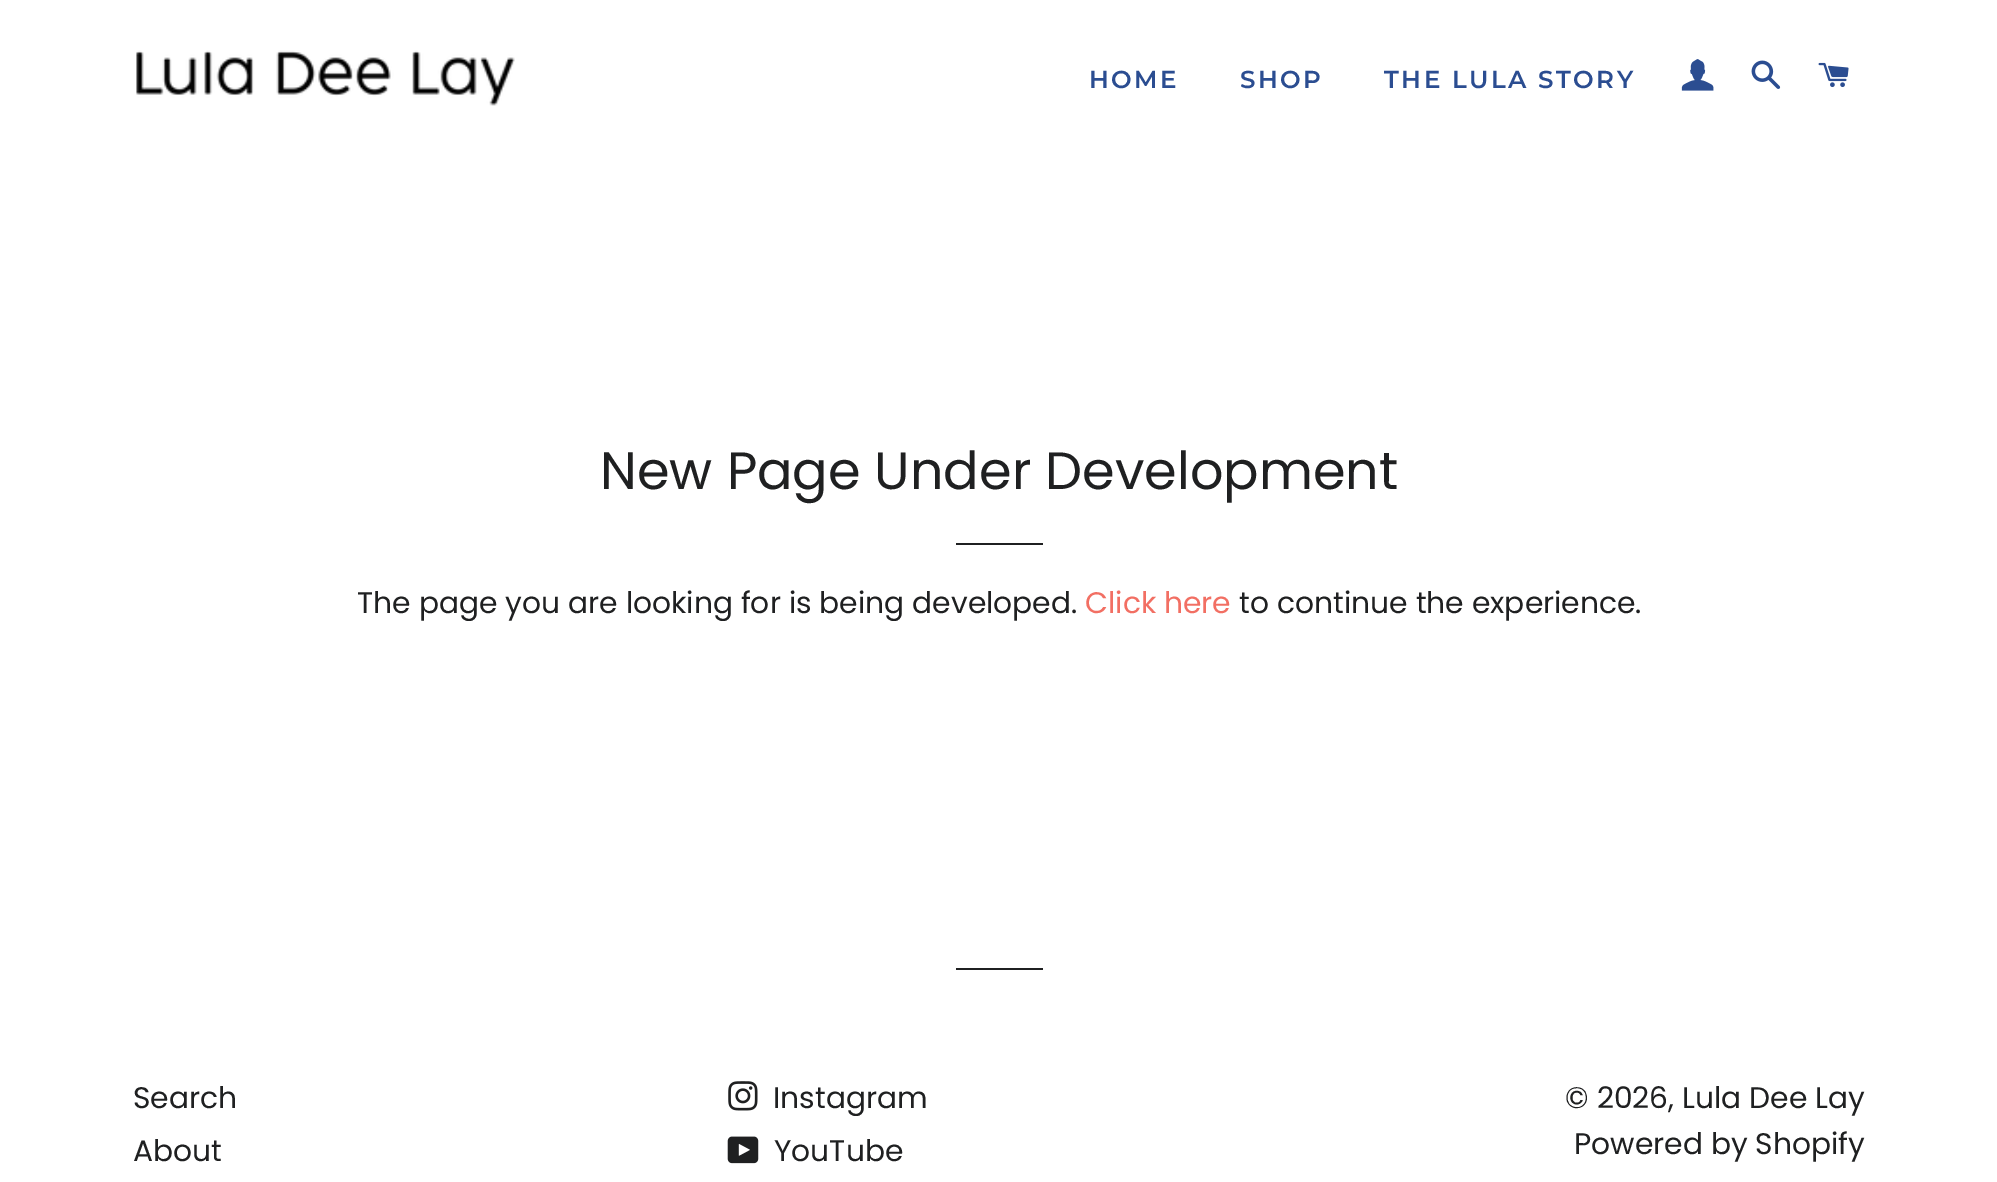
%!PS-Adobe-3.0
%%BoundingBox: 0 0 1997 1182
%%LanguageLevel: 3
%%Pages: 1
%%EndComments
%%BeginProlog
/m { moveto } bind def
/fn { [ exch dup neg 0 0 3 -1 roll 0 0 ] selectfont } def
/tx { moveto show } def
/bx { rectfill } def
/im { 5 dict begin { /h /w /y /x /name } { exch def } forall
  gsave x y translate w h scale
  w h 8 [w 0 0 h 0 0] name (r) file false 3 colorimage grestore end } def
%%EndProlog
%%BeginSetup
<< /PageSize [1997 1182] >> setpagedevice
%%EndSetup
%%Page: 1 1
0 1182 translate 1 -1 scale
4 setmiterlimit
1 setgray
0 0 1997 1182 bx
(image0.raw) 136 50 379 56 im
/Montserrat-SemiBold 24.5 fn
0.169 0.302 0.569 setrgbcolor
1089 88 m 2.5 0 (HOME) ashow
1240 88 m 2.5 0 (SHOP) ashow
1384 88 m 2.5 0 (THE LULA STORY) ashow
(image1.raw) 1681 59 33 32 im
(image2.raw) 1751 60 30 29 im
(image3.raw) 1818 62 31 26 im
/Poppins-Regular 52.5 fn
0.122 0.125 0.129 setrgbcolor
(New Page Under Development) 600 489 tx
956 543 87 2 bx
/Poppins-Regular 29.75 fn
(The page you are looking for is being developed.) 357 613 tx
0.949 0.435 0.388 setrgbcolor
(Click here) 1085 613 tx
0.122 0.125 0.129 setrgbcolor
(to continue the experience.) 1239 613 tx
956 968 87 2 bx
(Search) 133 1108 tx
(About) 133 1161 tx
(image4.raw) 728 1081 30 30 im
(Instagram) 773 1108 tx
(image5.raw) 727 1136 32 28 im
(YouTube) 774 1161 tx
(© 2026, Lula Dee Lay) 1565 1108 tx
(Powered by Shopify) 1574 1154 tx
showpage
%%EOF
